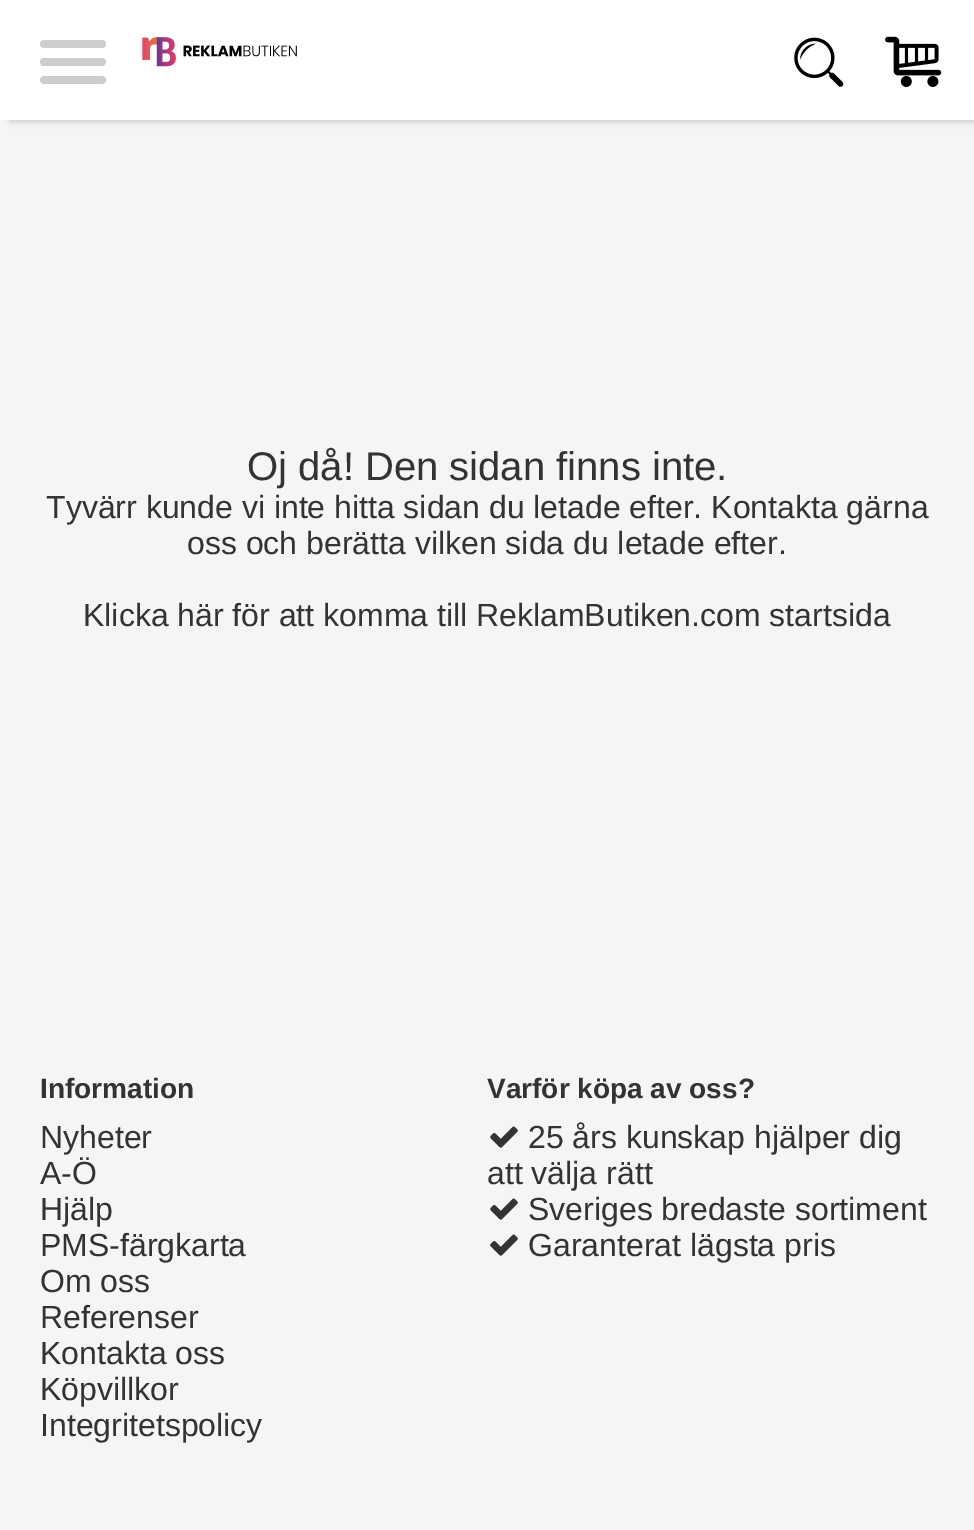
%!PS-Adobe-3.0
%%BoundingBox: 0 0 974 1530
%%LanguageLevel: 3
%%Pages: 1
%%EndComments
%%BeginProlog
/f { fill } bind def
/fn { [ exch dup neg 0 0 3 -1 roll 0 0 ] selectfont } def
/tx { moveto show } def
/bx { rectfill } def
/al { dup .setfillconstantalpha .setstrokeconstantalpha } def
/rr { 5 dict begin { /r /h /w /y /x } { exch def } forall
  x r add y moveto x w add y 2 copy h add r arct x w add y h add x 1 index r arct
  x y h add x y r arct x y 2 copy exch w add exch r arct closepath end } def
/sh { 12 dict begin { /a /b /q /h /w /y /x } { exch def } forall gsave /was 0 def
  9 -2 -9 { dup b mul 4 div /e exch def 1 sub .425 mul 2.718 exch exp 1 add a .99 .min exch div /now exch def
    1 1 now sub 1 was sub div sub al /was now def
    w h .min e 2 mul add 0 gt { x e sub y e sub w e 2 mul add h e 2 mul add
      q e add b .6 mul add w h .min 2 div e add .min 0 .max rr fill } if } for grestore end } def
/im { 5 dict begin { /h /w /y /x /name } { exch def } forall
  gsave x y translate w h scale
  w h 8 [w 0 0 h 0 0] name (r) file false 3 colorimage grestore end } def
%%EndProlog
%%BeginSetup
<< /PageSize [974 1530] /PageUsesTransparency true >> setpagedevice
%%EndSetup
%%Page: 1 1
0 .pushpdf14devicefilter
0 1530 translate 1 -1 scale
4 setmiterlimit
0.961 setgray
0 0 974 1530 bx
0.8 setgray
10 2 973 120 0 3 1 sh
1 setgray
0 0 974 120 bx
0.804 setgray
40 40 66 8 4 rr f
40 58 66 8 4 rr f
40 76 66 8 4 rr f
(image0.raw) 142 37 155 30 im
(image1.raw) 794 37 50 50 im
(image2.raw) 885 36 57 51 im
/LiberationSans-Regular 40 fn
0.2 setgray
(Oj då! Den sidan finns inte.) 247 480 tx
/LiberationSans-Regular 32 fn
(Tyvärr kunde vi inte hitta sidan du letade efter. Kontakta gärna) 46 518 tx
(oss och berätta vilken sida du letade efter.) 187 554 tx
(Klicka här för att komma till ReklamButiken.com startsida) 83 626 tx
/LiberationSans-Bold 28 fn
(Information) 40 1098 tx
/LiberationSans-Regular 32 fn
(Nyheter) 40 1148 tx
(A-Ö) 40 1184 tx
(Hjälp) 40 1220 tx
(PMS-färgkarta) 40 1256 tx
(Om oss) 40 1292 tx
(Referenser) 40 1328 tx
(Kontakta oss) 40 1364 tx
(Köpvillkor) 40 1400 tx
(Integritetspolicy) 40 1436 tx
/LiberationSans-Bold 28 fn
(Varför köpa av oss?) 487 1098 tx
(image3.raw) 490 1126 28 22 im
/LiberationSans-Regular 32 fn
(25 års kunskap hjälper dig) 528 1148 tx
(att välja rätt) 487 1184 tx
(image3.raw) 490 1198 28 22 im
(Sveriges bredaste sortiment) 528 1220 tx
(image3.raw) 490 1234 28 22 im
(Garanterat lägsta pris) 528 1256 tx
.poppdf14devicefilter showpage
%%EOF
